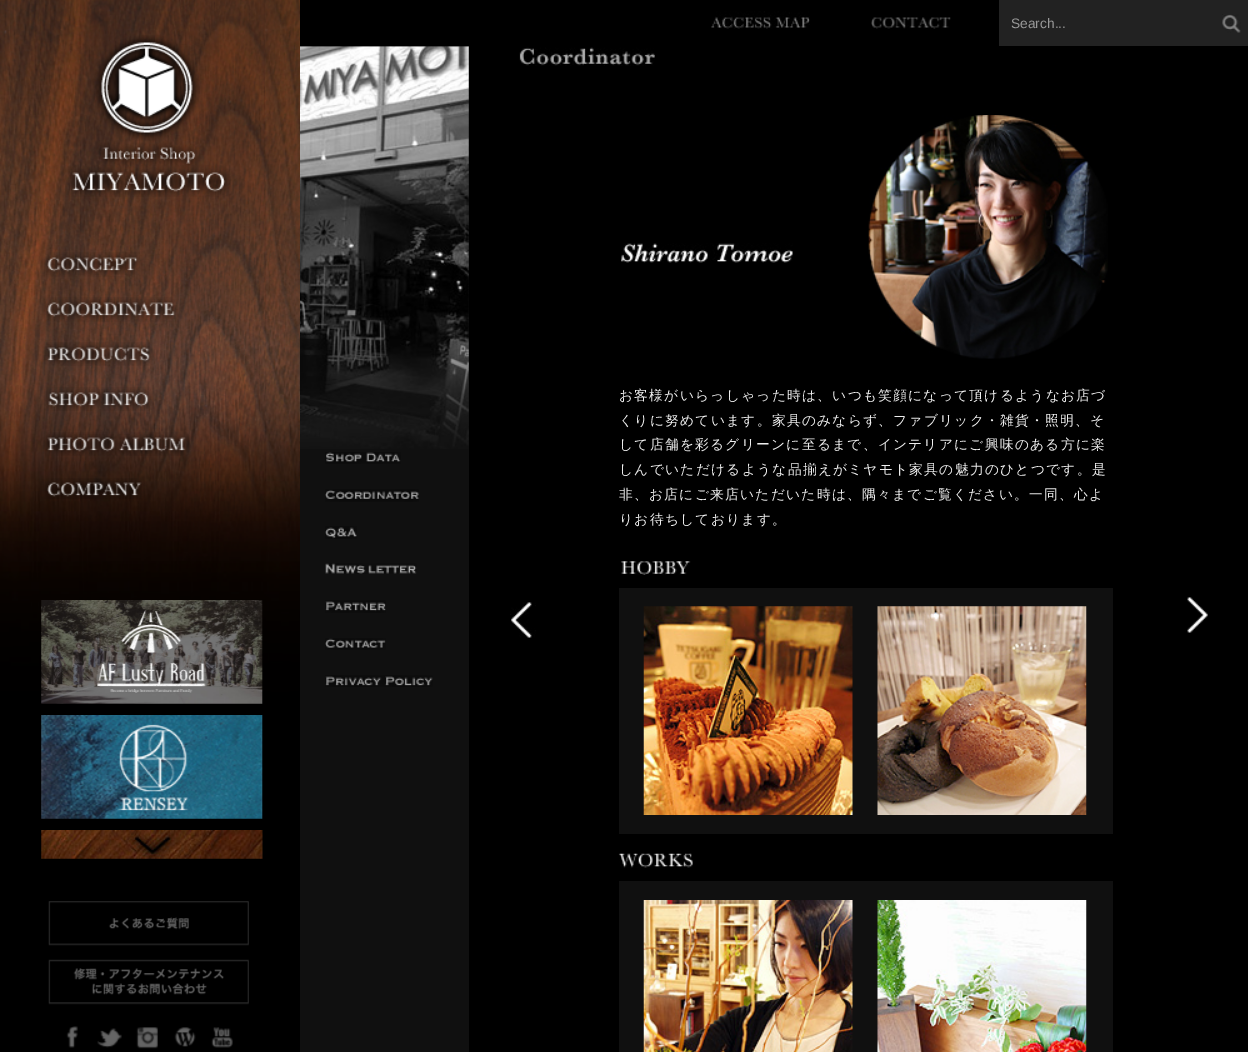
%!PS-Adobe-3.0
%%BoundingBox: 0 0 1248 1052
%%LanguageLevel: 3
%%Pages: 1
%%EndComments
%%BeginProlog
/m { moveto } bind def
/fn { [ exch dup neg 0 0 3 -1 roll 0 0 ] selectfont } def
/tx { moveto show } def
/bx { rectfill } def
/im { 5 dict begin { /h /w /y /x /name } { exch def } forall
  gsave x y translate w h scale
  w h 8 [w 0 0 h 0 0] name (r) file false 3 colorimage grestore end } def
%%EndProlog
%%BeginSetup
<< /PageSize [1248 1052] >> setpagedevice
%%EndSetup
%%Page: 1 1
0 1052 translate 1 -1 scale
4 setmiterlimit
0 setgray
0 0 1248 1052 bx
(image0.raw) 0 0 300 1007 im
(image1.raw) 68 35 163 162 im
(image2.raw) 42 252 98 25 im
(image3.raw) 42 297 136 25 im
(image4.raw) 42 342 113 24 im
(image5.raw) 44 387 110 24 im
(image6.raw) 43 432 146 24 im
(image7.raw) 43 478 99 21 im
(image8.raw) 41 600 222 104 im
(image9.raw) 41 715 222 104 im
(image10.raw) 41 830 222 29 im
(image11.raw) 48 901 201 45 im
(image12.raw) 48 959 201 46 im
(image13.raw) 66 1026 12 22 im
(image14.raw) 97 1028 25 20 im
(image15.raw) 136 1027 22 22 im
(image16.raw) 174 1027 22 20 im
(image17.raw) 211 1027 22 21 im
(image18.raw) 711 11 99 18 im
(image19.raw) 871 17 80 12 im
0.133 setgray
999 0 249 46 bx
/LiberationSans-Regular 13.75 fn
0.6 setgray
(Search...) 1011 28 tx
(image20.raw) 1222 14 19 19 im
0.063 setgray
300 46 169 1006 bx
(image21.raw) 300 46 169 403 im
(image22.raw) 325 452 76 12 im
(image23.raw) 325 489 94 13 im
(image24.raw) 325 526 32 13 im
(image25.raw) 325 563 92 11 im
(image26.raw) 325 600 61 13 im
(image27.raw) 325 638 61 12 im
(image28.raw) 325 675 108 12 im
(image29.raw) 519 47 136 19 im
(image30.raw) 621 243 172 20 im
(image31.raw) 868 115 240 244 im
/WenQuanYiZenHei-Medium 13.75 fn
0.933 setgray
619 400 m 1.25 0 (お客様がいらっしゃった時は、いつも笑顔になって頂けるようなお店づ) ashow
619 425 m 1.25 0 (くりに努めています。家具のみならず、ファブリック・雑貨・照明、そ) ashow
619 449 m 1.25 0 (して店舗を彩るグリーンに至るまで、インテリアにご興味のある方に楽) ashow
619 474 m 1.25 0 (しんでいただけるような品揃えがミヤモト家具の魅力のひとつです。是) ashow
619 499 m 1.25 0 (非、お店にご来店いただいた時は、隅々までご覧ください。一同、心よ) ashow
619 524 m 1.25 0 (りお待ちしております。) ashow
(image32.raw) 621 561 70 14 im
0.063 setgray
619 588 494 246 bx
(image33.raw) 643 606 210 209 im
(image34.raw) 877 606 210 209 im
(image35.raw) 618 853 75 15 im
619 881 494 171 bx
(image36.raw) 643 900 210 152 im
(image37.raw) 877 900 210 152 im
(image38.raw) 510 602 26 36 im
(image39.raw) 1187 597 21 36 im
showpage
%%EOF
